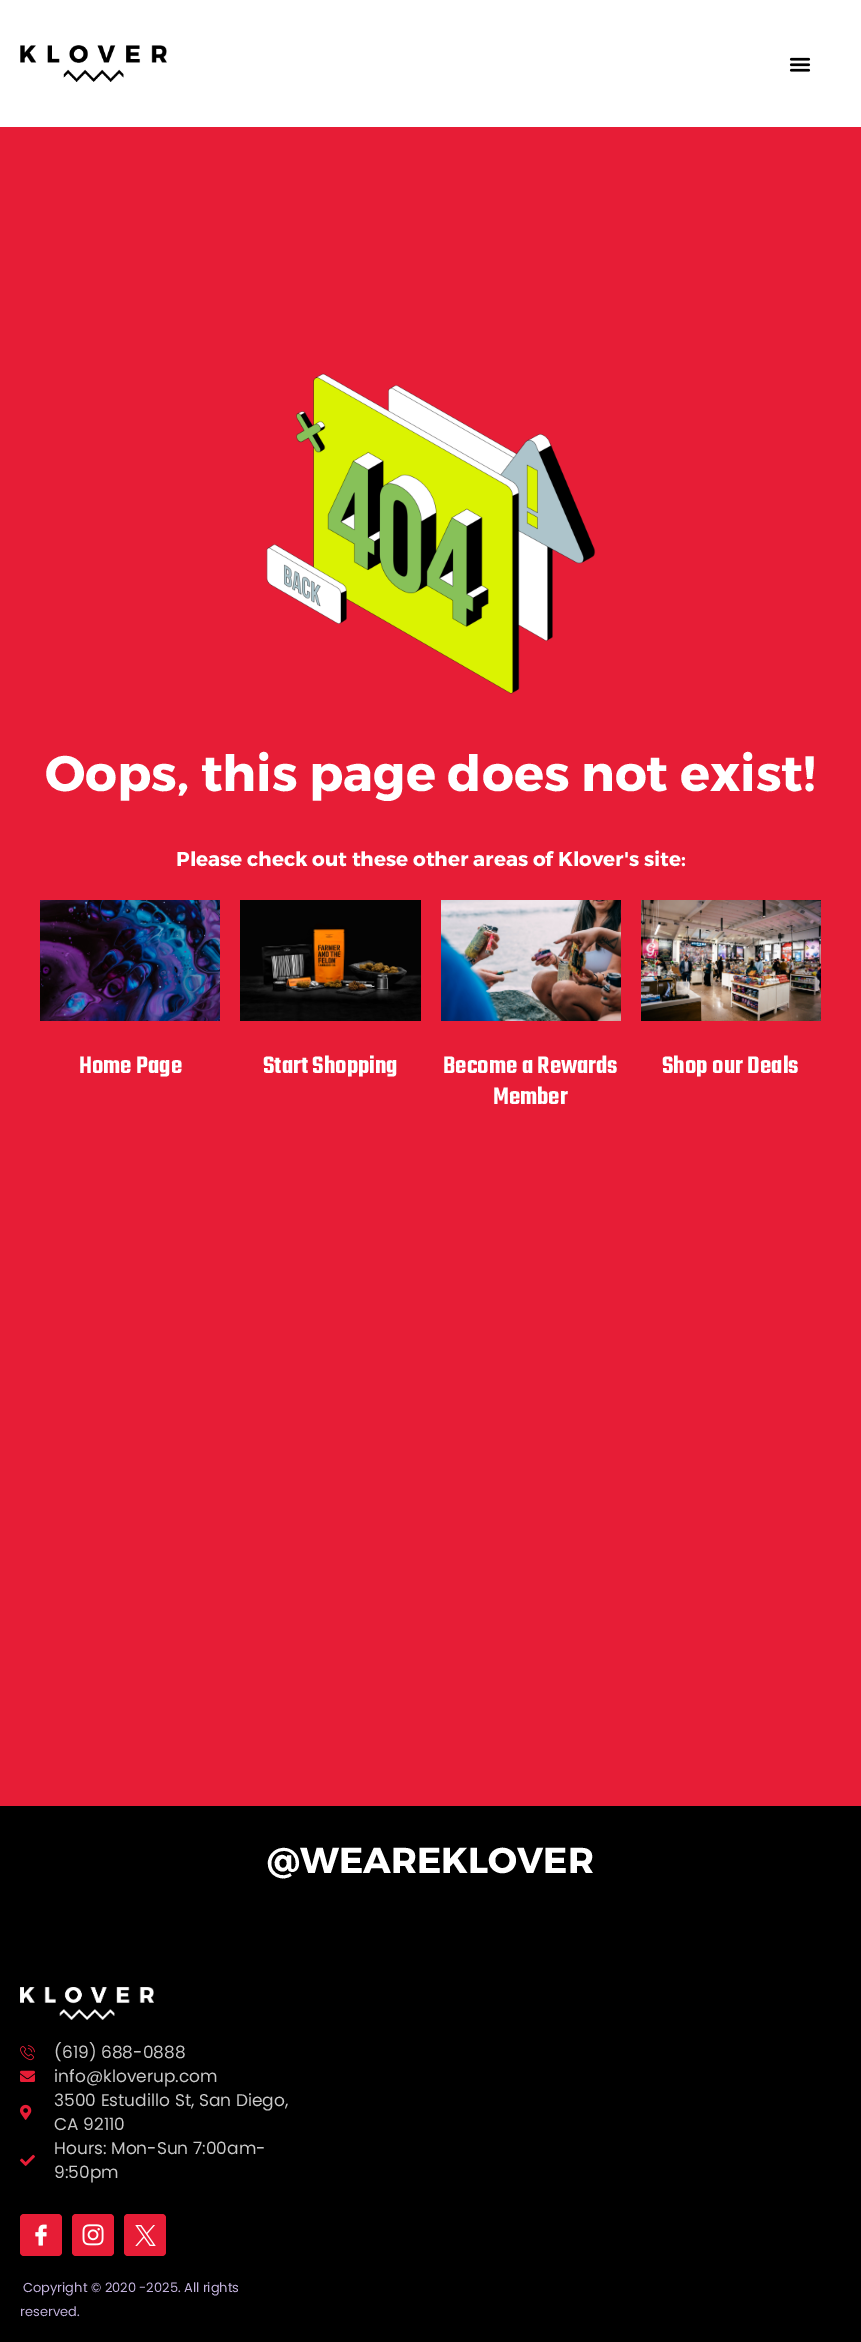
%!PS-Adobe-3.0
%%BoundingBox: 0 0 861 2342
%%LanguageLevel: 3
%%Pages: 1
%%EndComments
%%BeginProlog
/f { fill } bind def
/fn { [ exch dup neg 0 0 3 -1 roll 0 0 ] selectfont } def
/tx { moveto show } def
/bx { rectfill } def
/rr { 5 dict begin { /r /h /w /y /x } { exch def } forall
  x r add y moveto x w add y 2 copy h add r arct x w add y h add x 1 index r arct
  x y h add x y r arct x y 2 copy exch w add exch r arct closepath end } def
/im { 5 dict begin { /h /w /y /x /name } { exch def } forall
  gsave x y translate w h scale
  w h 8 [w 0 0 h 0 0] name (r) file false 3 colorimage grestore end } def
%%EndProlog
%%BeginSetup
<< /PageSize [861 2342] >> setpagedevice
%%EndSetup
%%Page: 1 1
0 2342 translate 1 -1 scale
4 setmiterlimit
0.906 0.114 0.212 setrgbcolor
0 0 861 2342 bx
1 setgray
0 0 861 127 bx
(image0.raw) 20 45 147 37 im
(image1.raw) 789 57 22 15 im
(image2.raw) 266 373 330 321 im
/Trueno-Bold 50 fn
(Oops, this page does not exist!) 45 791 tx
/Trueno-Bold 20 fn
(Please check out these other areas of Klover's site:) 176 866 tx
(image3.raw) 40 900 180 121 im
/Teko-SemiBold 26 fn
(Home Page) 79 1073 tx
(image4.raw) 240 900 181 121 im
(Start Shopping) 263 1073 tx
(image5.raw) 441 900 180 121 im
(Become a Rewards) 443 1073 tx
(Member) 493 1104 tx
(image6.raw) 641 900 180 121 im
(Shop our Deals) 662 1073 tx
0 setgray
0 1806 861 536 bx
/Trueno-Bold 36 fn
1 setgray
(@WEAREKLOVER) 267 1873 tx
(image7.raw) 20 1987 134 33 im
(image8.raw) 20 2045 15 16 im
/Poppins-Regular 17 fn
0.784 setgray
(\(619\) 688-0888) 54 2058 tx
(image9.raw) 20 2070 15 12 im
(info@kloverup.com) 54 2082 tx
(image10.raw) 20 2104 12 16 im
(3500 Estudillo St, San Diego,) 54 2106 tx
(CA 92110) 54 2130 tx
(image11.raw) 20 2154 15 12 im
(Hours: Mon-Sun 7:00am-) 54 2154 tx
(9:50pm) 54 2178 tx
0.906 0.114 0.212 setrgbcolor
20 2214 42 42 4 rr f
(image12.raw) 35 2224 12 22 im
72 2214 42 42 4 rr f
(image13.raw) 82 2224 22 22 im
124 2214 42 42 4 rr f
(image14.raw) 135 2225 21 21 im
/Poppins-Regular 13 fn
0.765 0.702 0.867 setrgbcolor
(Copyright © 2020 -2025. All rights) 23 2292 tx
(reserved.) 20 2316 tx
showpage
%%EOF
